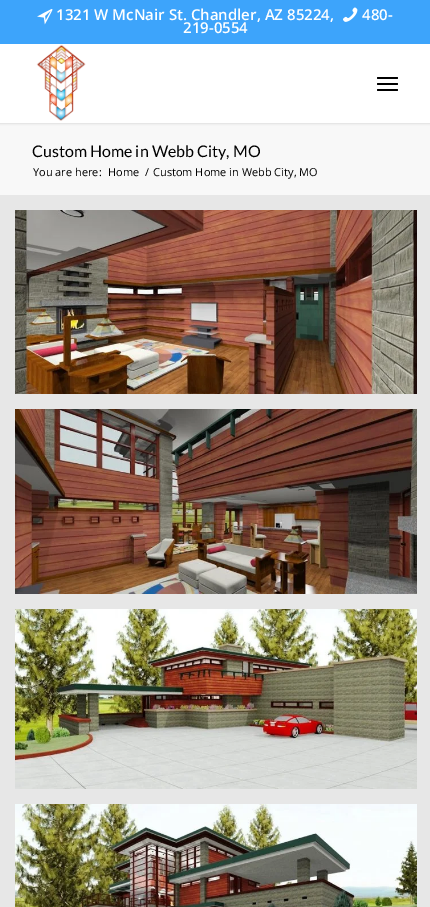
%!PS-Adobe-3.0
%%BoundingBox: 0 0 430 907
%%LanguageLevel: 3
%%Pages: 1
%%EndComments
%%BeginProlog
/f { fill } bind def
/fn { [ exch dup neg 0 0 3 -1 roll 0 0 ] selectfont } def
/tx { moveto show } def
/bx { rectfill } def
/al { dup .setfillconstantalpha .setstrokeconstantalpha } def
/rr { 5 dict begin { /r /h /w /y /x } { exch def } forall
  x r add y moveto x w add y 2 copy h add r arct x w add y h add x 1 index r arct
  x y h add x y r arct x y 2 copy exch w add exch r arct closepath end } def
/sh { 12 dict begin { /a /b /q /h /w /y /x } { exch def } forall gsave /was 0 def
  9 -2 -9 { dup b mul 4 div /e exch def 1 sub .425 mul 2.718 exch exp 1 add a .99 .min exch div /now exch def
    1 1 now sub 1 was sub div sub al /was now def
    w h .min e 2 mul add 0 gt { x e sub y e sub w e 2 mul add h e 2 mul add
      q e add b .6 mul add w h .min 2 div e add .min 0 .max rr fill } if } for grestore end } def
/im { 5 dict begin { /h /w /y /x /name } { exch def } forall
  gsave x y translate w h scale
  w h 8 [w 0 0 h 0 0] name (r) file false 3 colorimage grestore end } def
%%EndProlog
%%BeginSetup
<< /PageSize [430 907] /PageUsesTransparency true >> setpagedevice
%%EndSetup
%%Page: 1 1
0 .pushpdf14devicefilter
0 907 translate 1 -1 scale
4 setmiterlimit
0.973 setgray
0 0 430 907 bx
0 setgray
-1 -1 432 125 0 1 0.1 sh
1 setgray
0 44 430 79 bx
0.239 0.643 0.984 setrgbcolor
0 0 430 44 bx
(image0.raw) 37 9 16 16 im
/OpenSans-SemiBold 15 fn
1 setgray
(1321 W McNair St. Chandler, AZ 85224,) 56 20 tx
(image1.raw) 343 7 15 15 im
(480-) 362 20 tx
(219-0554) 183 33 tx
(image2.raw) 36 44 50 77 im
0 setgray
377 83 21 2 1 rr f
377 77 21 2 1 rr f
377 89 21 2 1 rr f
/Lato-Regular 16 fn
(Custom Home in Webb City, MO) 32 157 tx
/OpenSans-Regular 11 fn
(You are here:) 33 176 tx
(Home) 108 176 tx
(/) 145 176 tx
(Custom Home in Webb City, MO) 153 176 tx
0.906 setgray
0 195 430 712 bx
(image3.raw) 15 210 402 184 im
(image4.raw) 15 409 402 185 im
(image5.raw) 15 609 402 180 im
(image6.raw) 15 804 402 103 im
.poppdf14devicefilter showpage
%%EOF
